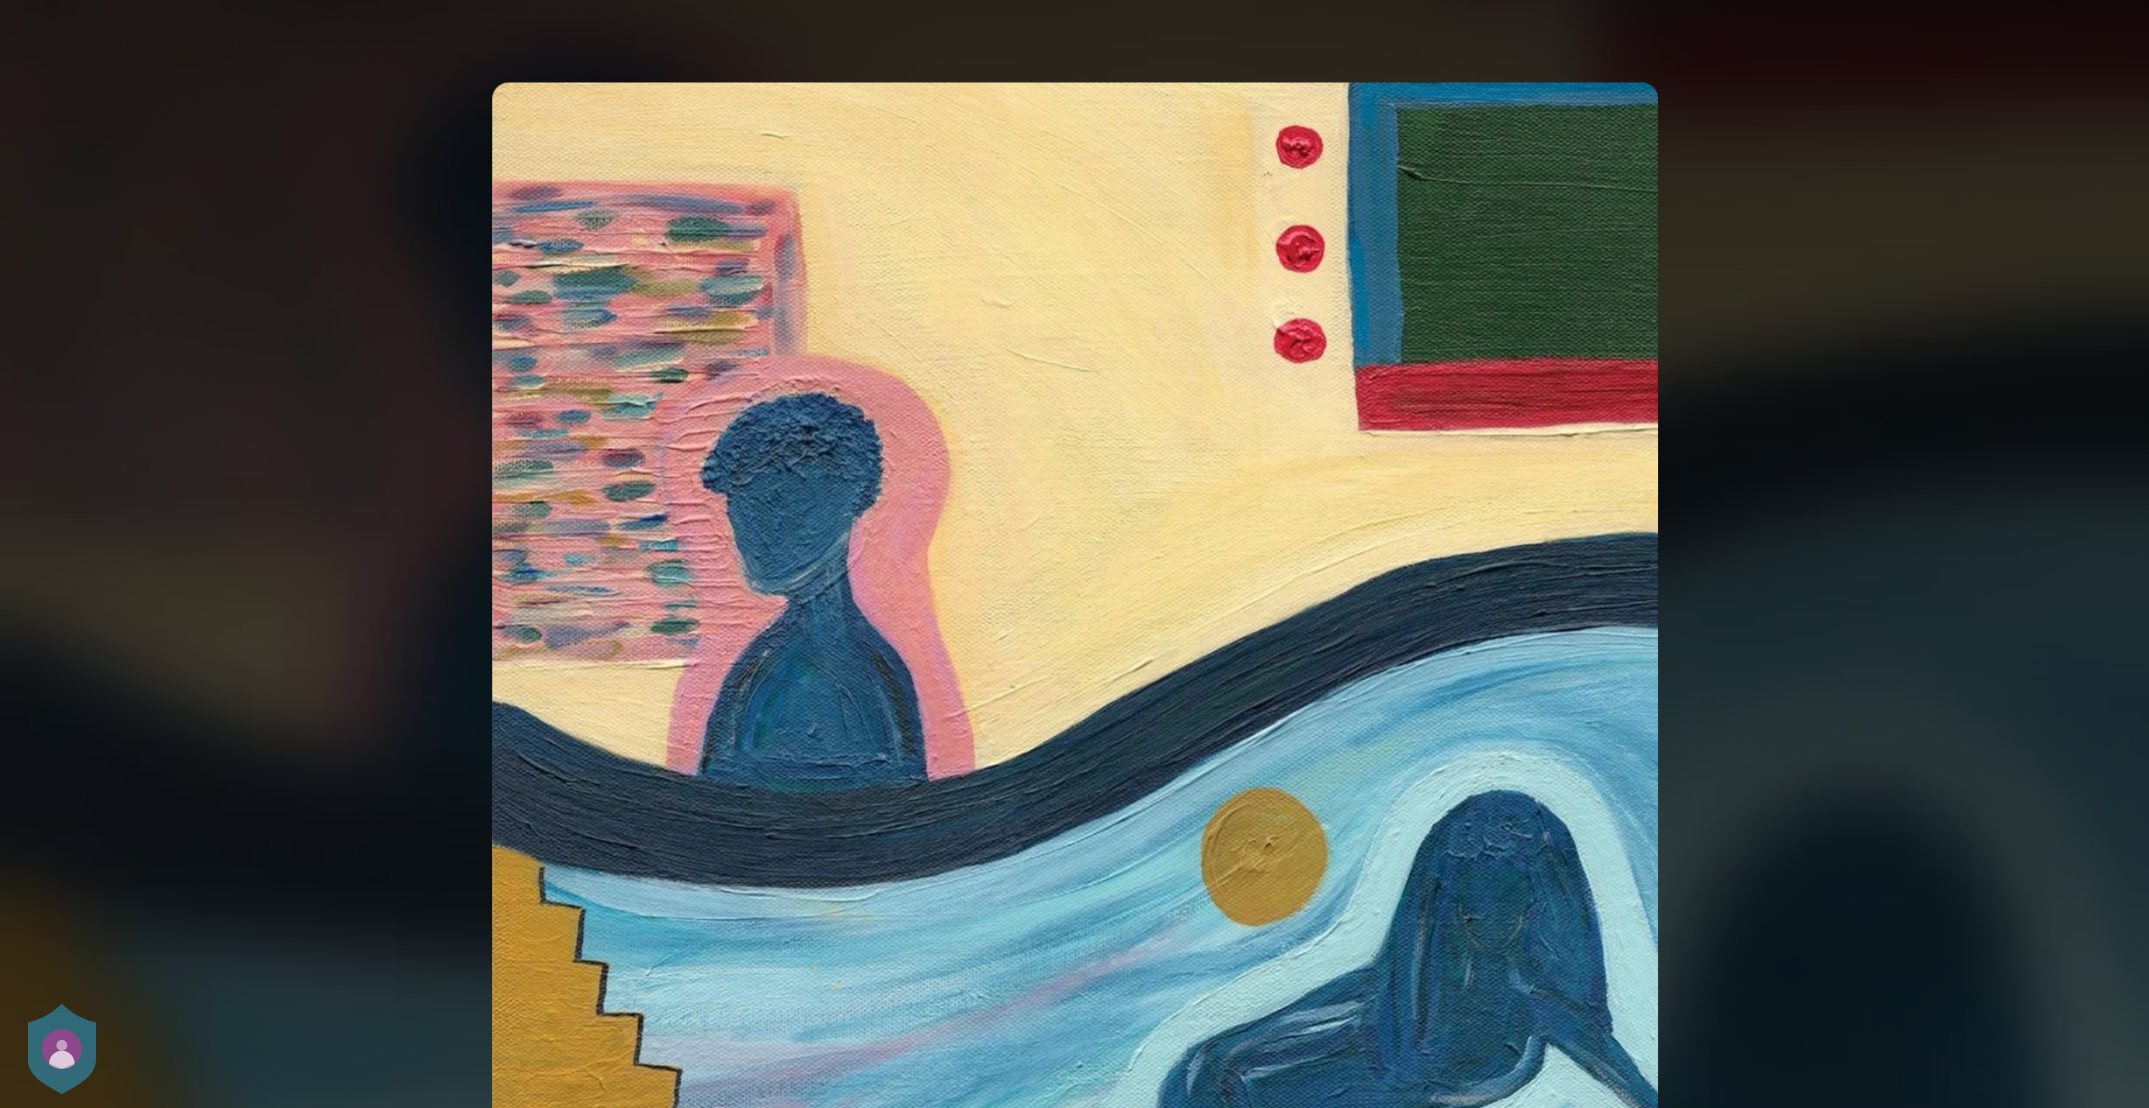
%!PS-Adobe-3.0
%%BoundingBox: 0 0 2149 1108
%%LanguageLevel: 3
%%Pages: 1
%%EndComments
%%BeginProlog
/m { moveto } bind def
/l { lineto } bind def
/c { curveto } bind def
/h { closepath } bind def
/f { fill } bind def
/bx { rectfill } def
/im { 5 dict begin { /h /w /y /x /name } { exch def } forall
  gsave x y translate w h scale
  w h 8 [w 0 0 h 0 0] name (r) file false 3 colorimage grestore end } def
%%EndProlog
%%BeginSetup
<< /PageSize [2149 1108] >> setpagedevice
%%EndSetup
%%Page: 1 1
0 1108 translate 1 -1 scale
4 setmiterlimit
1 setgray
0 0 2149 1108 bx
(image0.raw) 0 0 2149 1108 im
0.184 setgray
509 83 m 1641 83 l 1650.5 83 1658 90.5 1658 100 c 1658 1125 l 492 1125 l 492 100 l 492 90.5 499.5 83 509 83 c h f
(image1.raw) 492 82 1167 1026 im
(image2.raw) 28 1004 68 91 im
showpage
%%EOF
